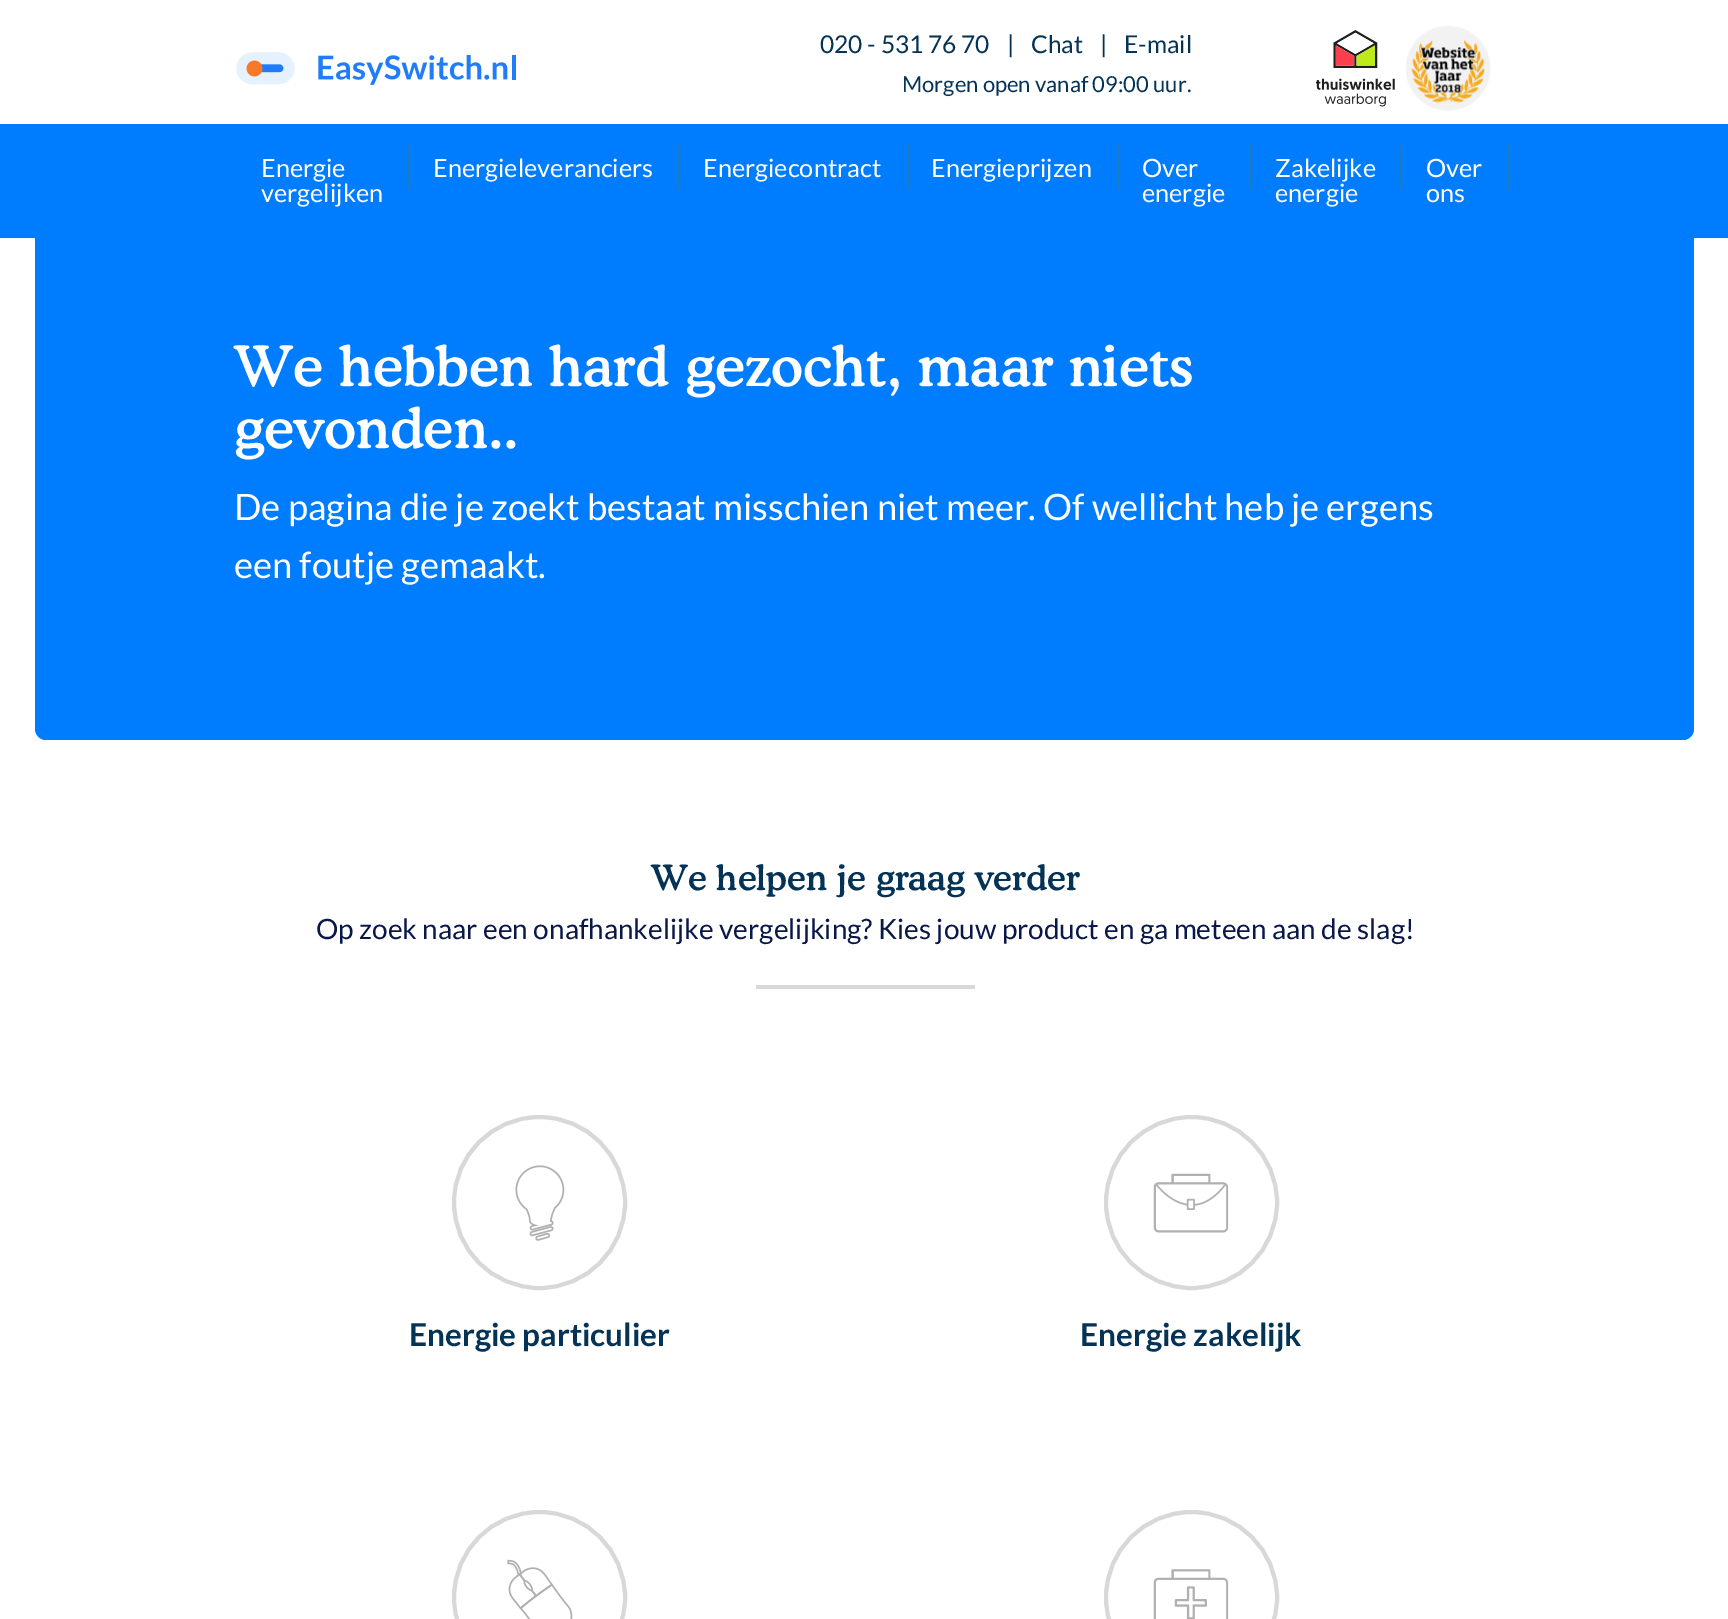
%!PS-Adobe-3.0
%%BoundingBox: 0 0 1728 1619
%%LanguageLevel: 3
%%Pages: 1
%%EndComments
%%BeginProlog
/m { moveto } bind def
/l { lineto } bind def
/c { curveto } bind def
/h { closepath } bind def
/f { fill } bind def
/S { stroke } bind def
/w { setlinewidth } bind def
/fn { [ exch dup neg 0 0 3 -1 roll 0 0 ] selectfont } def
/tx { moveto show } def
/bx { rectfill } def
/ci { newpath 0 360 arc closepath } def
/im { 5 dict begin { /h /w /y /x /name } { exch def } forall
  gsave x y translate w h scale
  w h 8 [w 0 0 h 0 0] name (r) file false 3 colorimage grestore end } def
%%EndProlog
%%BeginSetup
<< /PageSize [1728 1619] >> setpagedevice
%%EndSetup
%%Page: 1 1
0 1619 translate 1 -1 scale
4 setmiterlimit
1 setgray
0 0 1728 1619 bx
(image0.raw) 236 52 280 33 im
/Lato-Regular 24.5 fn
0.02 0.2 0.337 setrgbcolor
(020 - 531 76 70) 820 53 tx
(|) 1007 53 tx
(Chat) 1031 53 tx
(|) 1100 53 tx
(E-mail) 1124 53 tx
/Lato-Regular 22 fn
(Morgen open vanaf 09:00 uur.) 902 92 tx
(image1.raw) 1316 30 79 77 im
(image2.raw) 1405 25 86 86 im
0 0.49 1 setrgbcolor
0 124 1728 114 bx
/Lato-Regular 25.25 fn
1 setgray
(Energie) 261 177 tx
(vergelijken) 261 202 tx
0.125 0.482 0.733 setrgbcolor
408 145 2 44 bx
1 setgray
(Energieleveranciers) 433 177 tx
0.125 0.482 0.733 setrgbcolor
677 145 2 44 bx
1 setgray
(Energiecontract) 703 177 tx
0.125 0.482 0.733 setrgbcolor
907 145 2 44 bx
1 setgray
(Energieprijzen) 931 177 tx
0.125 0.482 0.733 setrgbcolor
1117 145 2 44 bx
1 setgray
(Over) 1142 177 tx
(energie) 1142 202 tx
0.125 0.482 0.733 setrgbcolor
1250 145 2 44 bx
1 setgray
(Zakelijke) 1275 177 tx
(energie) 1275 202 tx
0.125 0.482 0.733 setrgbcolor
1400 145 2 44 bx
1 setgray
(Over) 1426 177 tx
(ons) 1426 202 tx
0.125 0.482 0.733 setrgbcolor
1507 145 2 44 bx
0 0.49 1 setrgbcolor
35 238 m 1694 238 l 1694 729 l 1694 735 1689 740 1683 740 c 46 740 l 40 740 35 735 35 729 c h f
/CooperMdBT-Medium 56 fn
1 setgray
(We hebben hard gezocht, maar niets) 234 386 tx
(gevonden..) 234 448 tx
/Lato-Regular 36.4 fn
(De pagina die je zoekt bestaat misschien niet meer. Of wellicht heb je ergens) 234 520 tx
(een foutje gemaakt.) 234 578 tx
/CooperMdBT-Medium 35 fn
0.02 0.2 0.337 setrgbcolor
(We helpen je graag verder) 651 890 tx
/Lato-Regular 28 fn
0.039 0.094 0.286 setrgbcolor
(Op zoek naar een onafhankelijke vergelijking? Kies jouw product en ga meteen aan de slag!) 316 939 tx
0.847 setgray
756 985 219 4 bx
(image3.raw) 515 1165 50 76 im
4 w
539.5 1202.5 85.5 ci S
/Lato-Bold 31.5 fn
0.02 0.2 0.337 setrgbcolor
(Energie particulier) 409 1346 tx
(image4.raw) 1153 1173 76 60 im
0.847 setgray
1191.5 1202.5 85.5 ci S
0.02 0.2 0.337 setrgbcolor
(Energie zakelijk) 1080 1346 tx
(image5.raw) 507 1559 66 60 im
0.847 setgray
539.5 1597.5 85.5 ci S
(image6.raw) 1153 1569 76 50 im
1191.5 1597.5 85.5 ci S
showpage
%%EOF
